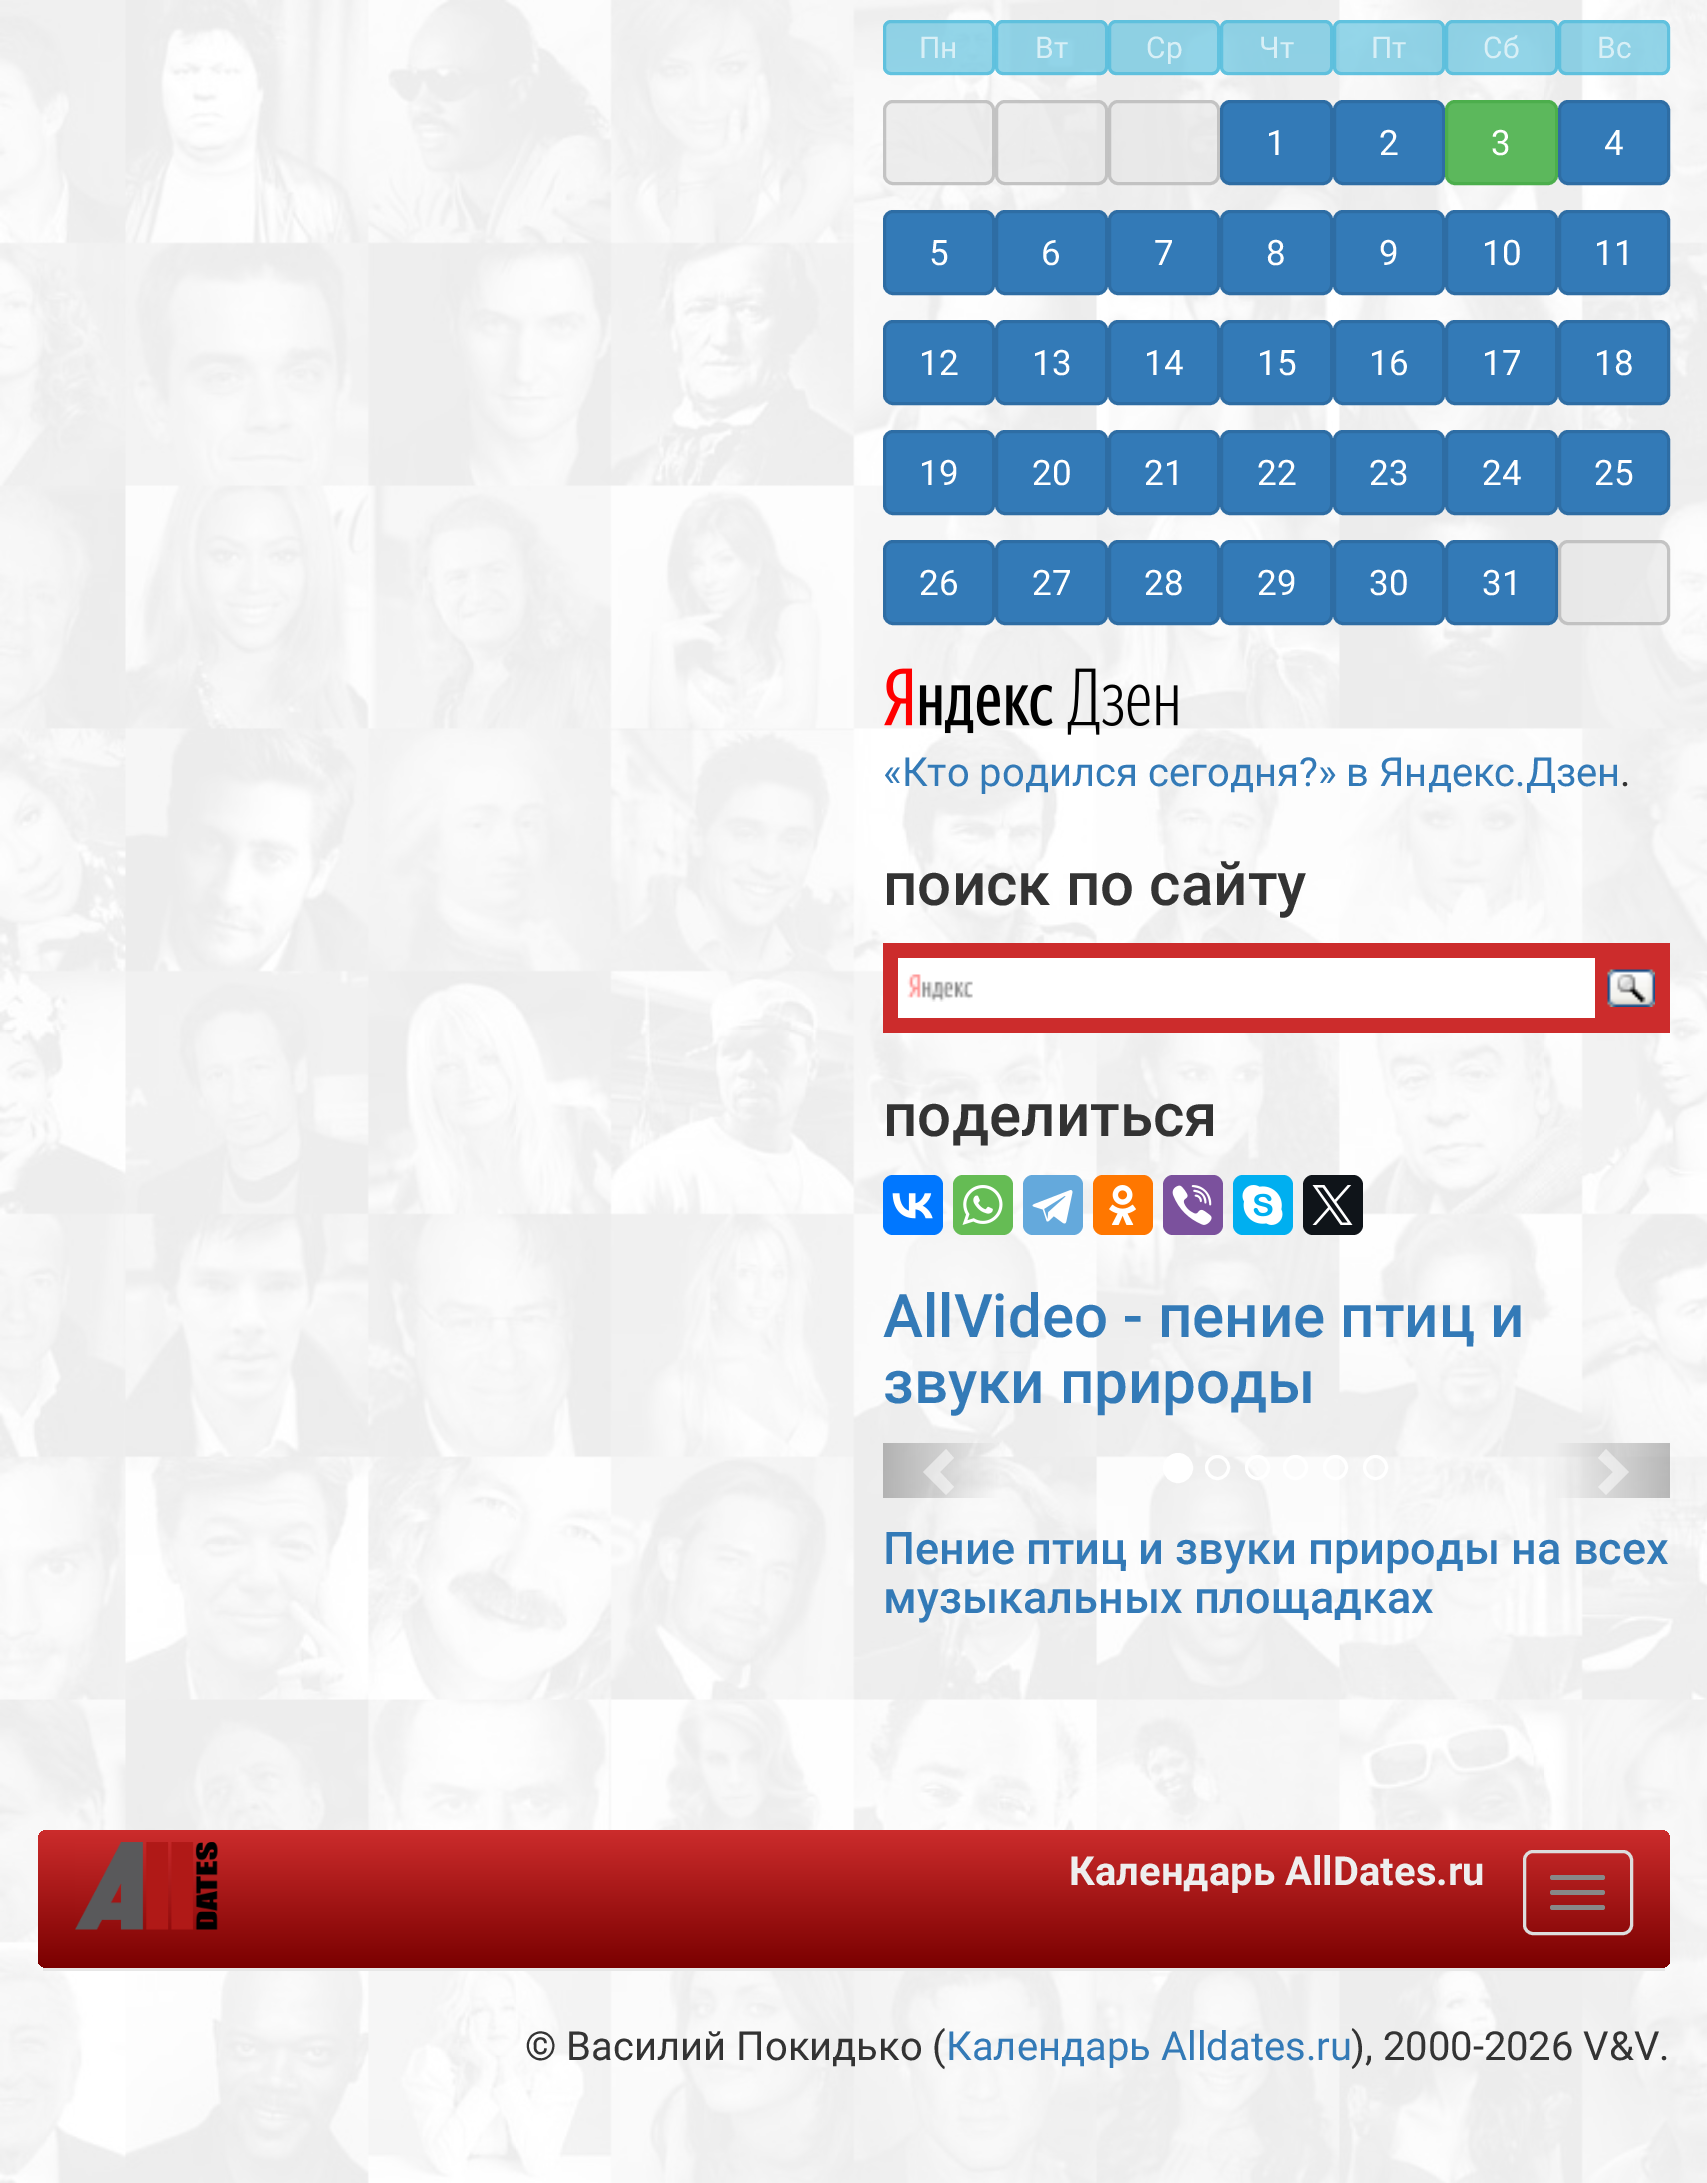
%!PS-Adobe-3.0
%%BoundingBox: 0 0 1707 2183
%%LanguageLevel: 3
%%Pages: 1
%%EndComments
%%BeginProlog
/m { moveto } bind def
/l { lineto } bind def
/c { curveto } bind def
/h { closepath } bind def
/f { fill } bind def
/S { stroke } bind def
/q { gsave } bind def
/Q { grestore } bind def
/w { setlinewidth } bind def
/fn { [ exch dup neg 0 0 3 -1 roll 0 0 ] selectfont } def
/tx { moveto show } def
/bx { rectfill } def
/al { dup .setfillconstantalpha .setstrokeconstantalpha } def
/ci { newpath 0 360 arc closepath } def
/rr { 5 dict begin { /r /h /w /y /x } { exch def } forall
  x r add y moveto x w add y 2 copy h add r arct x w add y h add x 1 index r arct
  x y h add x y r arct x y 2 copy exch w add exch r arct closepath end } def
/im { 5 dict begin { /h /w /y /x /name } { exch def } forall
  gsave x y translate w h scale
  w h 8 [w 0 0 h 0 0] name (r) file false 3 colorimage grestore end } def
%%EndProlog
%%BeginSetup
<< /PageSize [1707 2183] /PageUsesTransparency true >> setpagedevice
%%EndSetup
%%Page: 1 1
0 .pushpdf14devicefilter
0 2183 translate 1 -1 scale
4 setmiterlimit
1 setgray
0 0 1707 2183 bx
(image0.raw) 0 0 1707 2183 im
0.65 al
0.357 0.753 0.871 setrgbcolor
883 20 112 55 8 rr f
0.275 0.722 0.855 setrgbcolor
3 w
884.5 21.5 109 52 6.5 rr S
/Roboto-Regular 30 fn
1 al
0.847 0.937 0.965 setrgbcolor
(Пн) 919 58 tx
0.65 al
0.357 0.753 0.871 setrgbcolor
995 20 113 55 8 rr f
0.275 0.722 0.855 setrgbcolor
996.5 21.5 110 52 6.5 rr S
1 al
0.847 0.937 0.965 setrgbcolor
(Вт) 1035 58 tx
0.65 al
0.357 0.753 0.871 setrgbcolor
1108 20 112 55 8 rr f
0.275 0.722 0.855 setrgbcolor
1109.5 21.5 109 52 6.5 rr S
1 al
0.847 0.937 0.965 setrgbcolor
(Ср) 1146 58 tx
0.65 al
0.357 0.753 0.871 setrgbcolor
1220 20 113 55 8 rr f
0.275 0.722 0.855 setrgbcolor
1221.5 21.5 110 52 6.5 rr S
1 al
0.847 0.937 0.965 setrgbcolor
(Чт) 1259 58 tx
0.65 al
0.357 0.753 0.871 setrgbcolor
1333 20 112 55 8 rr f
0.275 0.722 0.855 setrgbcolor
1334.5 21.5 109 52 6.5 rr S
1 al
0.847 0.937 0.965 setrgbcolor
(Пт) 1371 58 tx
0.65 al
0.357 0.753 0.871 setrgbcolor
1445 20 113 55 8 rr f
0.275 0.722 0.855 setrgbcolor
1446.5 21.5 110 52 6.5 rr S
1 al
0.847 0.937 0.965 setrgbcolor
(Сб) 1483 58 tx
0.65 al
0.357 0.753 0.871 setrgbcolor
1558 20 112 55 8 rr f
0.275 0.722 0.855 setrgbcolor
1559.5 21.5 109 52 6.5 rr S
1 al
0.847 0.937 0.965 setrgbcolor
(Вс) 1597 58 tx
0.65 al
0.902 setgray
883 100 112 85 10 rr f
0.678 setgray
884.5 101.5 109 82 8.5 rr S
0.902 setgray
995 100 113 85 10 rr f
0.678 setgray
996.5 101.5 110 82 8.5 rr S
0.902 setgray
1108 100 112 85 10 rr f
0.678 setgray
1109.5 101.5 109 82 8.5 rr S
1 al
0.2 0.478 0.718 setrgbcolor
1221.5 101.5 110 82 8.5 rr q f Q
0.18 0.427 0.643 setrgbcolor
S
/Roboto-Regular 35 fn
1 setgray
(1) 1266 155 tx
0.2 0.478 0.718 setrgbcolor
1334.5 101.5 109 82 8.5 rr q f Q
0.18 0.427 0.643 setrgbcolor
S
1 setgray
(2) 1379 155 tx
0.361 0.722 0.361 setrgbcolor
1446.5 101.5 110 82 8.5 rr q f Q
0.298 0.682 0.298 setrgbcolor
S
1 setgray
(3) 1491 155 tx
0.2 0.478 0.718 setrgbcolor
1559.5 101.5 109 82 8.5 rr q f Q
0.18 0.427 0.643 setrgbcolor
S
1 setgray
(4) 1604 155 tx
0.2 0.478 0.718 setrgbcolor
884.5 211.5 109 82 8.5 rr q f Q
0.18 0.427 0.643 setrgbcolor
S
1 setgray
(5) 929 265 tx
0.2 0.478 0.718 setrgbcolor
996.5 211.5 110 82 8.5 rr q f Q
0.18 0.427 0.643 setrgbcolor
S
1 setgray
(6) 1041 265 tx
0.2 0.478 0.718 setrgbcolor
1109.5 211.5 109 82 8.5 rr q f Q
0.18 0.427 0.643 setrgbcolor
S
1 setgray
(7) 1154 265 tx
0.2 0.478 0.718 setrgbcolor
1221.5 211.5 110 82 8.5 rr q f Q
0.18 0.427 0.643 setrgbcolor
S
1 setgray
(8) 1266 265 tx
0.2 0.478 0.718 setrgbcolor
1334.5 211.5 109 82 8.5 rr q f Q
0.18 0.427 0.643 setrgbcolor
S
1 setgray
(9) 1379 265 tx
0.2 0.478 0.718 setrgbcolor
1446.5 211.5 110 82 8.5 rr q f Q
0.18 0.427 0.643 setrgbcolor
S
1 setgray
(10) 1482 265 tx
0.2 0.478 0.718 setrgbcolor
1559.5 211.5 109 82 8.5 rr q f Q
0.18 0.427 0.643 setrgbcolor
S
1 setgray
(11) 1594 265 tx
0.2 0.478 0.718 setrgbcolor
884.5 321.5 109 82 8.5 rr q f Q
0.18 0.427 0.643 setrgbcolor
S
1 setgray
(12) 919 375 tx
0.2 0.478 0.718 setrgbcolor
996.5 321.5 110 82 8.5 rr q f Q
0.18 0.427 0.643 setrgbcolor
S
1 setgray
(13) 1032 375 tx
0.2 0.478 0.718 setrgbcolor
1109.5 321.5 109 82 8.5 rr q f Q
0.18 0.427 0.643 setrgbcolor
S
1 setgray
(14) 1144 375 tx
0.2 0.478 0.718 setrgbcolor
1221.5 321.5 110 82 8.5 rr q f Q
0.18 0.427 0.643 setrgbcolor
S
1 setgray
(15) 1257 375 tx
0.2 0.478 0.718 setrgbcolor
1334.5 321.5 109 82 8.5 rr q f Q
0.18 0.427 0.643 setrgbcolor
S
1 setgray
(16) 1369 375 tx
0.2 0.478 0.718 setrgbcolor
1446.5 321.5 110 82 8.5 rr q f Q
0.18 0.427 0.643 setrgbcolor
S
1 setgray
(17) 1482 375 tx
0.2 0.478 0.718 setrgbcolor
1559.5 321.5 109 82 8.5 rr q f Q
0.18 0.427 0.643 setrgbcolor
S
1 setgray
(18) 1594 375 tx
0.2 0.478 0.718 setrgbcolor
884.5 431.5 109 82 8.5 rr q f Q
0.18 0.427 0.643 setrgbcolor
S
1 setgray
(19) 919 485 tx
0.2 0.478 0.718 setrgbcolor
996.5 431.5 110 82 8.5 rr q f Q
0.18 0.427 0.643 setrgbcolor
S
1 setgray
(20) 1032 485 tx
0.2 0.478 0.718 setrgbcolor
1109.5 431.5 109 82 8.5 rr q f Q
0.18 0.427 0.643 setrgbcolor
S
1 setgray
(21) 1144 485 tx
0.2 0.478 0.718 setrgbcolor
1221.5 431.5 110 82 8.5 rr q f Q
0.18 0.427 0.643 setrgbcolor
S
1 setgray
(22) 1257 485 tx
0.2 0.478 0.718 setrgbcolor
1334.5 431.5 109 82 8.5 rr q f Q
0.18 0.427 0.643 setrgbcolor
S
1 setgray
(23) 1369 485 tx
0.2 0.478 0.718 setrgbcolor
1446.5 431.5 110 82 8.5 rr q f Q
0.18 0.427 0.643 setrgbcolor
S
1 setgray
(24) 1482 485 tx
0.2 0.478 0.718 setrgbcolor
1559.5 431.5 109 82 8.5 rr q f Q
0.18 0.427 0.643 setrgbcolor
S
1 setgray
(25) 1594 485 tx
0.2 0.478 0.718 setrgbcolor
884.5 541.5 109 82 8.5 rr q f Q
0.18 0.427 0.643 setrgbcolor
S
1 setgray
(26) 919 595 tx
0.2 0.478 0.718 setrgbcolor
996.5 541.5 110 82 8.5 rr q f Q
0.18 0.427 0.643 setrgbcolor
S
1 setgray
(27) 1032 595 tx
0.2 0.478 0.718 setrgbcolor
1109.5 541.5 109 82 8.5 rr q f Q
0.18 0.427 0.643 setrgbcolor
S
1 setgray
(28) 1144 595 tx
0.2 0.478 0.718 setrgbcolor
1221.5 541.5 110 82 8.5 rr q f Q
0.18 0.427 0.643 setrgbcolor
S
1 setgray
(29) 1257 595 tx
0.2 0.478 0.718 setrgbcolor
1334.5 541.5 109 82 8.5 rr q f Q
0.18 0.427 0.643 setrgbcolor
S
1 setgray
(30) 1369 595 tx
0.2 0.478 0.718 setrgbcolor
1446.5 541.5 110 82 8.5 rr q f Q
0.18 0.427 0.643 setrgbcolor
S
1 setgray
(31) 1482 595 tx
0.65 al
0.902 setgray
1558 540 112 85 10 rr f
0.678 setgray
1559.5 541.5 109 82 8.5 rr S
1 al
(image1.raw) 884 668 294 67 im
/Roboto-Regular 40 fn
0.2 0.478 0.718 setrgbcolor
(«Кто родился сегодня?» в Яндекс.Дзен) 883 786 tx
0.2 setgray
(.) 1620 786 tx
/Roboto-Medium 60 fn
(поиск по сайту) 883 905 tx
0.8 0.173 0.173 setrgbcolor
883 943 787 90 bx
1 setgray
898 958 697 60 bx
(image2.raw) 907 974 66 28 im
(image3.raw) 1607 969 48 38 im
0.2 setgray
(поделиться) 883 1136 tx
0 0.467 1 setrgbcolor
883 1175 60 60 10 rr f
(image4.raw) 892 1193 41 26 im
0.396 0.737 0.329 setrgbcolor
953 1175 60 60 10 rr f
(image5.raw) 962 1185 41 40 im
0.392 0.663 0.863 setrgbcolor
1023 1175 60 60 10 rr f
(image6.raw) 1032 1190 41 34 im
1 0.467 0 setrgbcolor
1093 1175 60 60 10 rr f
(image7.raw) 1109 1185 27 40 im
0.482 0.318 0.616 setrgbcolor
1163 1175 60 60 10 rr f
(image8.raw) 1172 1185 40 40 im
0 0.686 0.941 setrgbcolor
1233 1175 60 60 10 rr f
(image9.raw) 1242 1185 41 40 im
0.059 0.078 0.098 setrgbcolor
1303 1175 60 60 10 rr f
(image10.raw) 1312 1185 41 40 im
0.2 0.478 0.718 setrgbcolor
(AllVideo - пение птиц и) 883 1337 tx
(звуки природы) 883 1403 tx
0.5 al
1 setgray
954 1458 m 940 1472 l 954 1487 l 946 1495 l 923 1472 l 946 1449 l h f
1 al
1178 1468 13.5 ci q f Q
S
1217.5 1467.5 11 ci S
1257.5 1467.5 11 ci S
1295.5 1467.5 11 ci S
1335.5 1467.5 11 ci S
1375.5 1467.5 11 ci S
0.5 al
1629 1472 m 1606 1495 l 1598 1487 l 1613 1472 l 1598 1458 l 1606 1449 l h f
/Roboto-Medium 45 fn
1 al
0.2 0.478 0.718 setrgbcolor
(Пение птиц и звуки природы на всех) 883 1564 tx
(музыкальных площадках) 883 1613 tx
q 48 1830 m 1660 1830 l 1666 1830 1670 1834 1670 1840 c 1670 1960 l 1670 1964 1666 1968 1660 1968 c 48 1968 l 42 1968 38 1964 38 1960 c 38 1840 l 38 1834 42 1830 48 1830 c h clip newpath
<< /ShadingType 2 /ColorSpace /DeviceRGB /Coords [854 1830 854 1968] /Extend [true true] /Function << /FunctionType 2 /Domain [0 1] /C0 [0.8 0.173 0.173] /C1 [0.478 0 0] /N 1 >> >> shfill Q
0.906 setgray
43 1968 1622 3 bx
(image11.raw) 75 1842 143 88 im
/Roboto-Bold 40 fn
0.933 setgray
(Календарь AllDates.ru) 1069 1885 tx
0.867 setgray
1524.5 1851.5 107 82 8.5 rr S
0.533 setgray
1550 1875 55 5 2.5 rr f
1550 1890 55 5 2.5 rr f
1550 1905 55 5 2.5 rr f
/Roboto-Regular 40 fn
0.2 setgray
(© Василий Покидько \() 525 2060 tx
0.2 0.478 0.718 setrgbcolor
(Календарь Alldates.ru) 946 2060 tx
0.2 setgray
(\), 2000-2026 V&V.) 1351 2060 tx
.poppdf14devicefilter showpage
%%EOF
